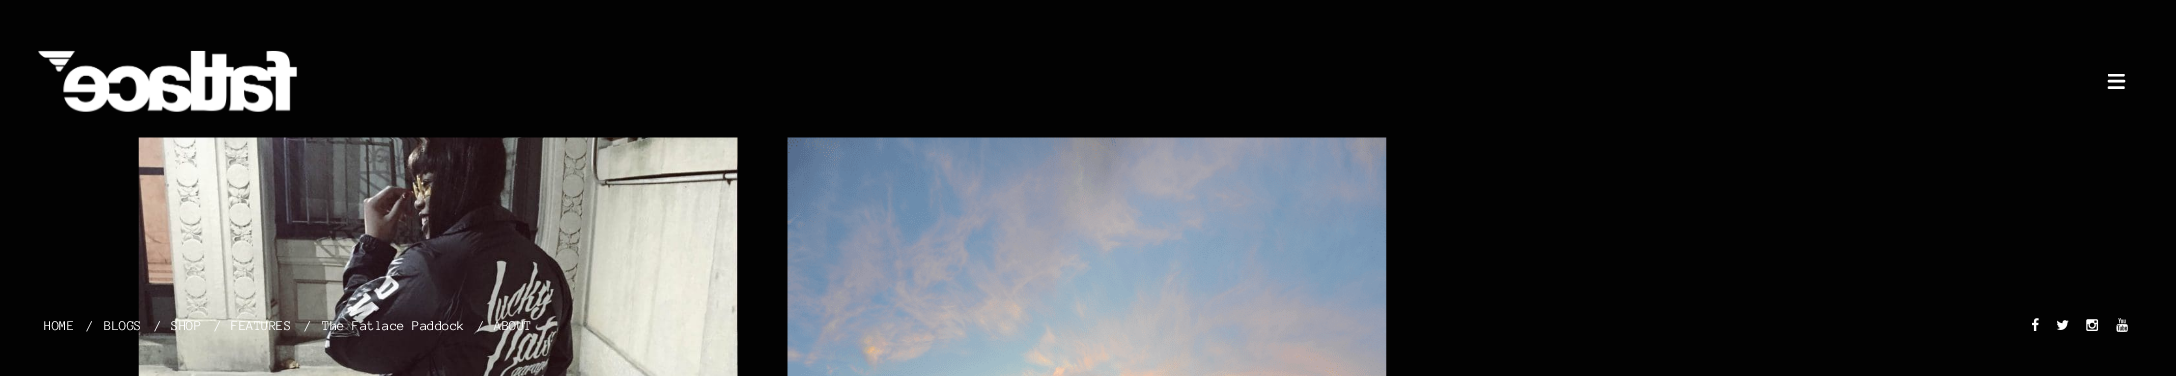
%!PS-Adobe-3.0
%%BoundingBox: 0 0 2176 376
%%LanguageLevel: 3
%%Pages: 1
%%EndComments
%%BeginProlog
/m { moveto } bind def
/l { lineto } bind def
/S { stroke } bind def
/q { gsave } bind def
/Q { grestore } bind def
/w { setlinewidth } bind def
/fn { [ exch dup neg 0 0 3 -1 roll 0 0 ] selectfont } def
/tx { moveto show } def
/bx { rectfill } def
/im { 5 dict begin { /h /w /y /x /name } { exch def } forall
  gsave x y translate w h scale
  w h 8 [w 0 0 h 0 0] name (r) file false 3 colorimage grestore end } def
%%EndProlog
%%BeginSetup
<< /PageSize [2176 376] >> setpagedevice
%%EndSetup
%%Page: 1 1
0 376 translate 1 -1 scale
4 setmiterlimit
0.008 setgray
0 0 2176 376 bx
(image0.raw) 38 50 260 62 im
q
2108 74 25 15 rectclip
1 setgray
2.5 w
1 setlinecap
1 setlinejoin
2109 75 m 2123.5 75 l S
Q
1 setgray
2.5 w
1 setlinecap
1 setlinejoin
2109 81 m 2124 81 l 2109 87.5 m 2123.5 87.5 l S
(image1.raw) 138 137 600 239 im
(image2.raw) 787 137 600 239 im
/AnonymousPro-Regular 13.75 fn
(HOME) 44 330 tx
(/) 86 330 tx
(BLOGS) 104 330 tx
(/) 154 330 tx
(SHOP) 171 330 tx
(/) 214 330 tx
(FEATURES) 231 330 tx
(/) 304 330 tx
(The Fatlace Paddock) 322 330 tx
(/) 477 330 tx
(ABOUT) 494 330 tx
(image3.raw) 2032 318 7 13 im
(image4.raw) 2056 320 13 10 im
(image5.raw) 2086 319 13 12 im
(image6.raw) 2116 318 12 14 im
showpage
%%EOF
